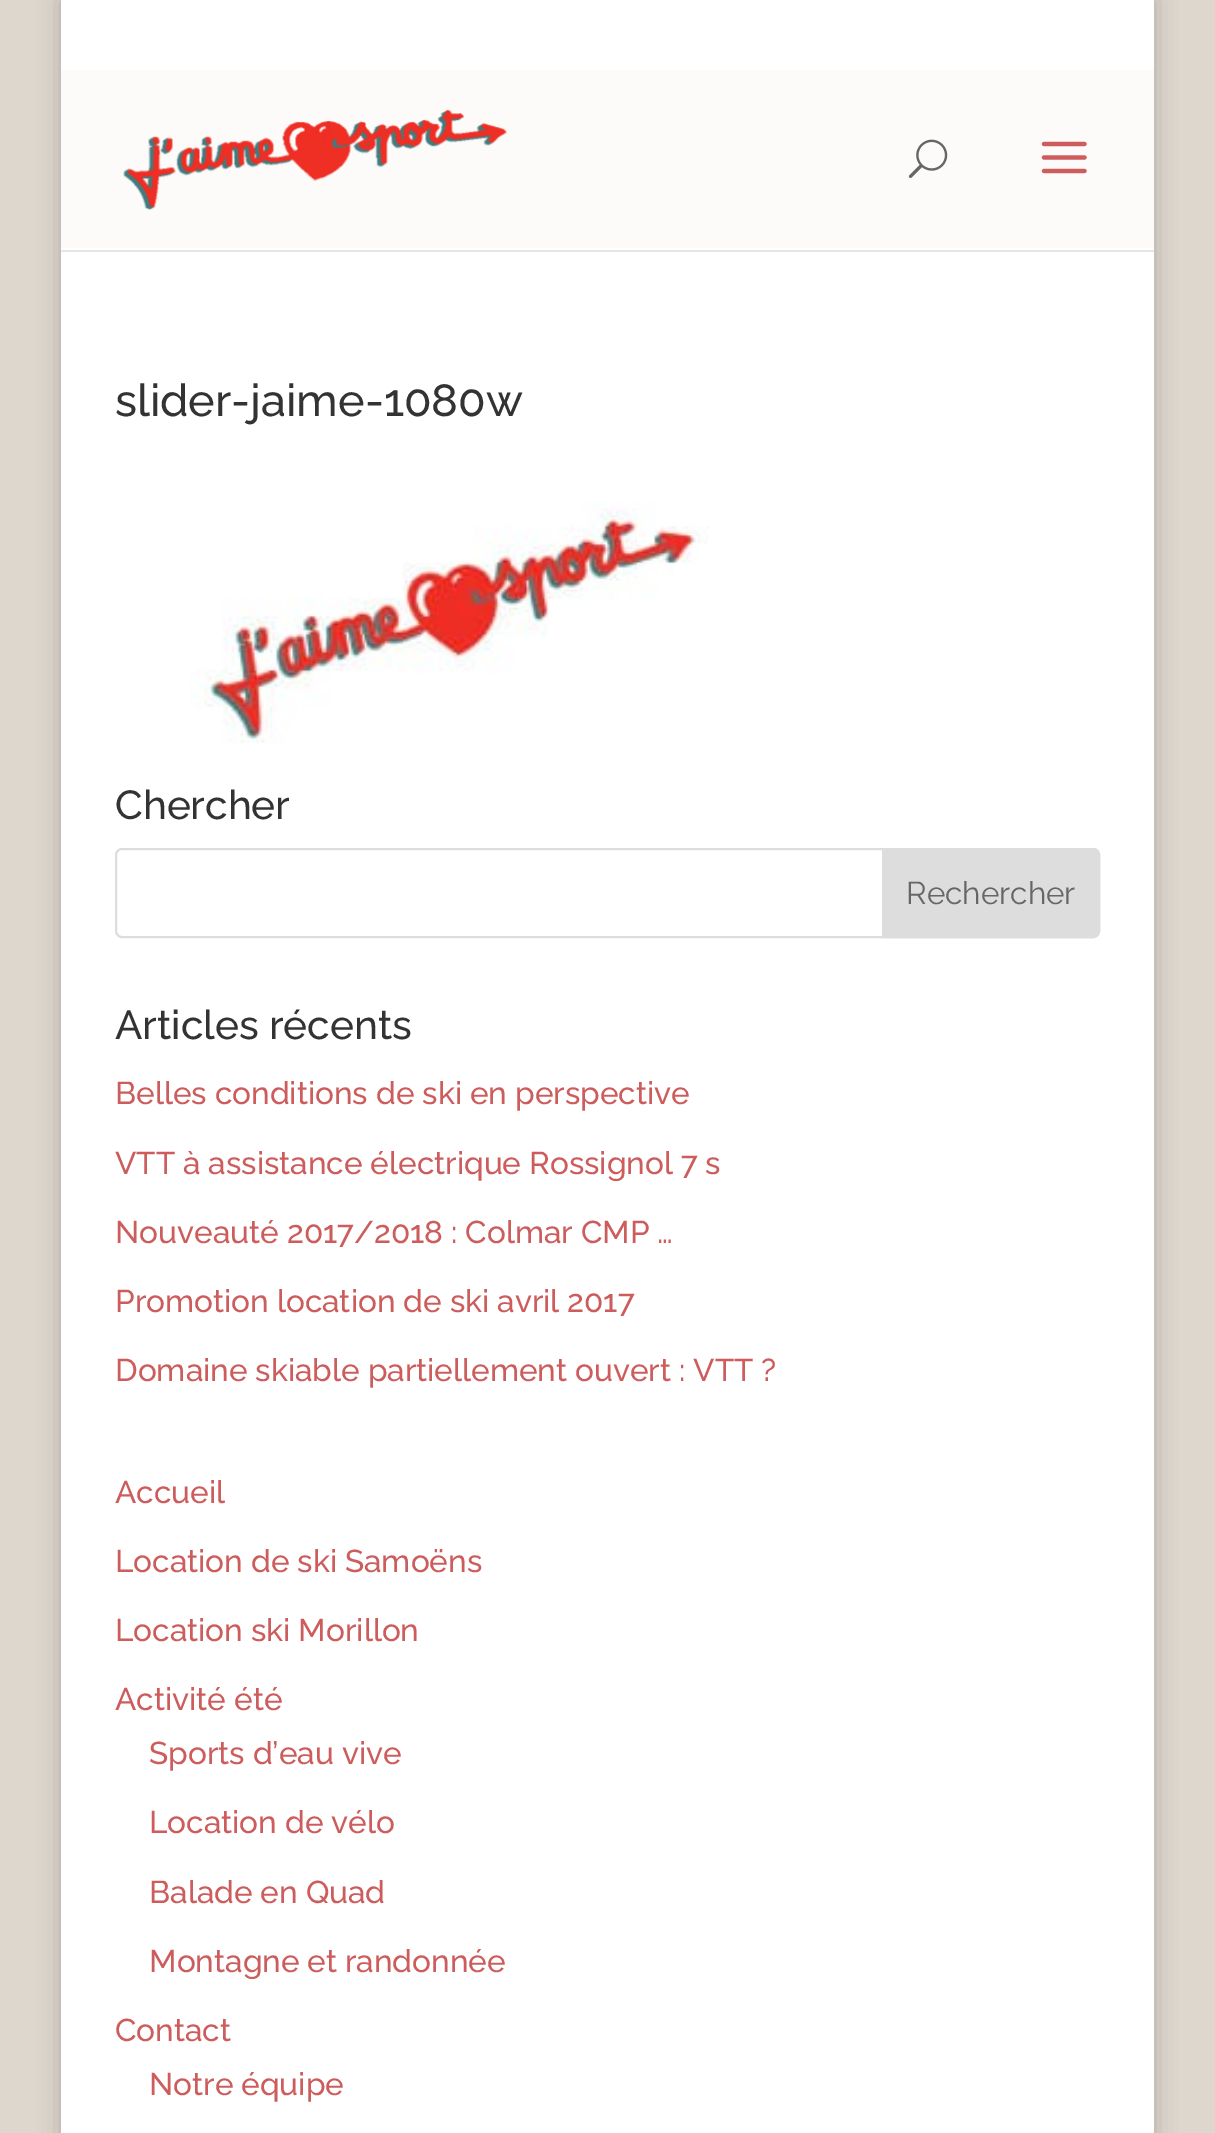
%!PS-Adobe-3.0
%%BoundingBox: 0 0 1215 2133
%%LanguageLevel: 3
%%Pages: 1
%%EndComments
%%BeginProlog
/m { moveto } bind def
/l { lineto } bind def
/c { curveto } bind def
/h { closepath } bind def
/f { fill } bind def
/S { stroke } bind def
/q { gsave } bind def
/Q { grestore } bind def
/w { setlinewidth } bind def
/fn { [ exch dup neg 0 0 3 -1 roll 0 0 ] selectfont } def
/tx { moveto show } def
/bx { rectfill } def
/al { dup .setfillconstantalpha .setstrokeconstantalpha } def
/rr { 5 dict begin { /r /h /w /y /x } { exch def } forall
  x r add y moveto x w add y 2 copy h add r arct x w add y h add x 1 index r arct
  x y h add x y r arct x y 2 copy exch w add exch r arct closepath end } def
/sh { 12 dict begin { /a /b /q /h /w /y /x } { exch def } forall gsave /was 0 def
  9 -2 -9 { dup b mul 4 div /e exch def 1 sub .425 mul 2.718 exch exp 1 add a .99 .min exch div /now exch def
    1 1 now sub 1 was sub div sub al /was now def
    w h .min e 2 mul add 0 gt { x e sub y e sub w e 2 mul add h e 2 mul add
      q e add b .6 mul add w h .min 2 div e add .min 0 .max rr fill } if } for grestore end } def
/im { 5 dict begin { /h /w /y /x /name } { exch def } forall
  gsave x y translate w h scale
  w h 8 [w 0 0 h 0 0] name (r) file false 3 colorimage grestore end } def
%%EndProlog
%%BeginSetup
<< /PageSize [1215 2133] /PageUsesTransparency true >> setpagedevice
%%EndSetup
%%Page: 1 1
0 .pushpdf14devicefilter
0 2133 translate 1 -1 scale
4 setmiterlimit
0.867 0.843 0.808 setrgbcolor
0 0 1215 2133 bx
0.988 0.984 0.98 setrgbcolor
61 70 1093 178 bx
q
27 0 m 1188 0 l 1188 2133 l 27 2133 l h 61 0 m 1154 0 l 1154 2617 l 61 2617 l h eoclip newpath
0 setgray
61 0 1093 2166 0 11 0.2 sh
Q
1 setgray
61 0 1093 70 bx
0.902 setgray
61 250 1093 2 bx
(image0.raw) 123 110 384 100 im
(image1.raw) 908 139 40 39 im
(image2.raw) 1041 141 46 33 im
1 setgray
61 252 1093 1881 bx
61 248 1093 2 bx
/Raleway-Medium 45 fn
0.2 setgray
(slider-jaime-1080w) 115 416 tx
(image3.raw) 190 502 519 242 im
/Raleway-Medium 40.5 fn
(Chercher) 115 819 tx
0.867 setgray
2 w
116 849 983 88 6 rr S
883 849 m 1093 849 l 1096.5 849 1099 851.5 1099 855 c 1099 931 l 1099 934.5 1096.5 937 1093 937 c 883 937 l h q f Q
S
/Raleway-Regular 31.5 fn
0.4 setgray
(Rechercher) 906 904 tx
/Raleway-Medium 40.5 fn
0.2 setgray
(Articles récents) 115 1039 tx
/Raleway-Medium 31.5 fn
0.804 0.361 0.361 setrgbcolor
(Belles conditions de ski en perspective) 115 1104 tx
(VTT à assistance électrique Rossignol 7 s) 115 1174 tx
(Nouveauté 2017/2018 : Colmar CMP …) 115 1243 tx
(Promotion location de ski avril 2017) 115 1312 tx
(Domaine skiable partiellement ouvert : VTT ?) 115 1381 tx
(Accueil) 115 1503 tx
(Location de ski Samoëns) 115 1572 tx
(Location ski Morillon) 115 1641 tx
(Activité été) 115 1710 tx
(Sports d’eau vive) 149 1764 tx
(Location de vélo) 149 1833 tx
(Balade en Quad) 149 1903 tx
(Montagne et randonnée) 149 1972 tx
(Contact) 115 2041 tx
(Notre équipe) 149 2095 tx
.poppdf14devicefilter showpage
%%EOF
